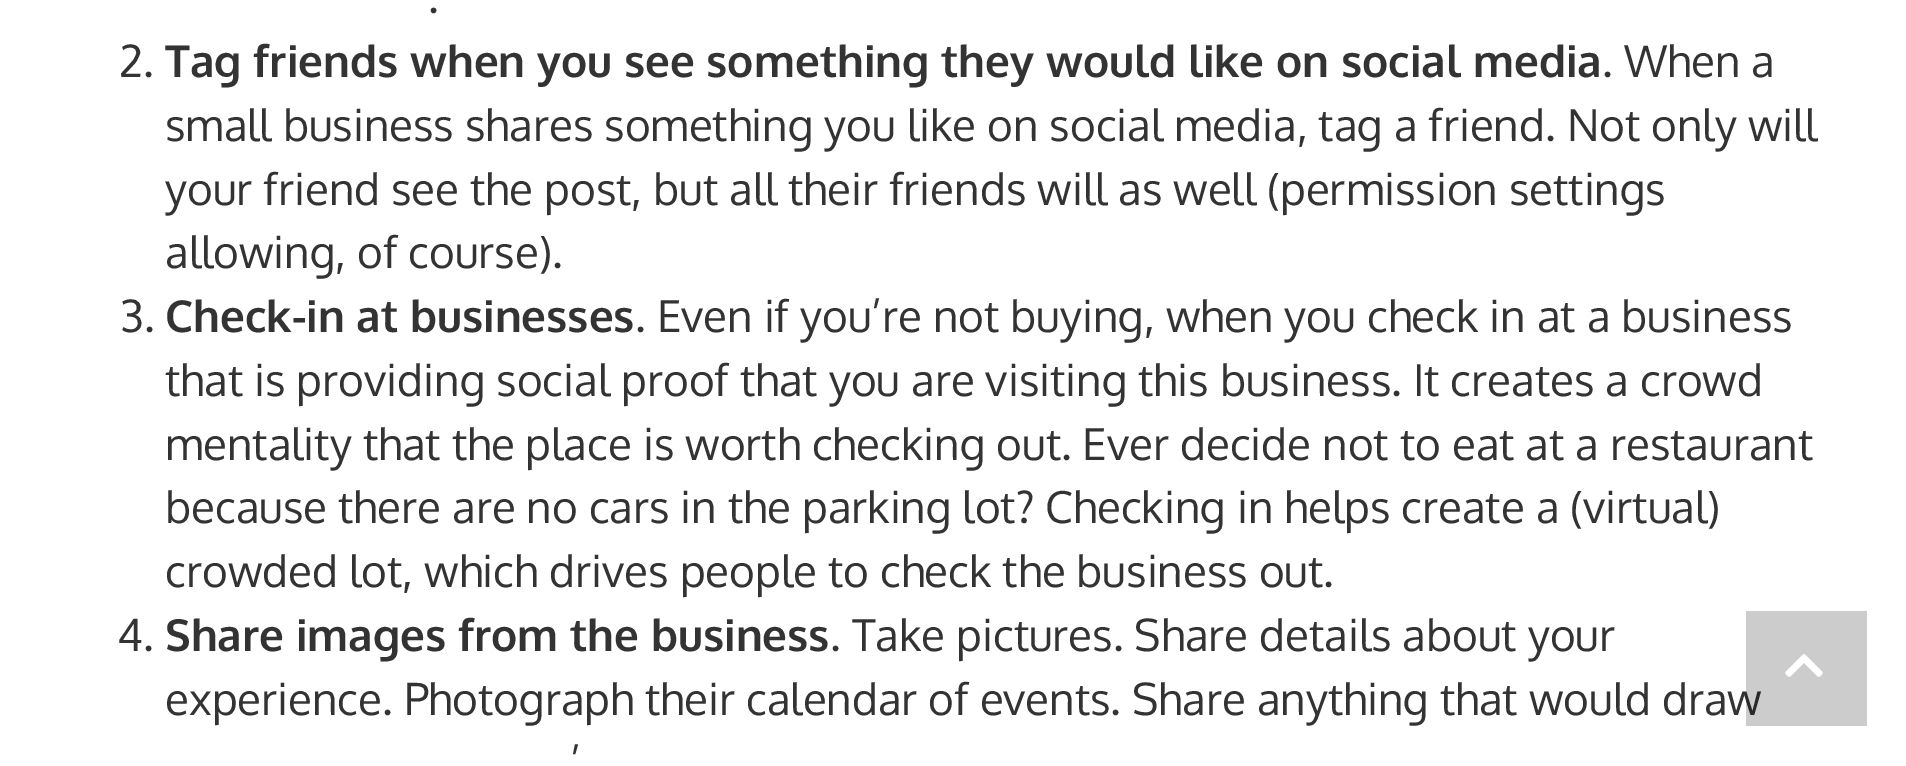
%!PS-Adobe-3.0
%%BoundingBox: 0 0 1906 766
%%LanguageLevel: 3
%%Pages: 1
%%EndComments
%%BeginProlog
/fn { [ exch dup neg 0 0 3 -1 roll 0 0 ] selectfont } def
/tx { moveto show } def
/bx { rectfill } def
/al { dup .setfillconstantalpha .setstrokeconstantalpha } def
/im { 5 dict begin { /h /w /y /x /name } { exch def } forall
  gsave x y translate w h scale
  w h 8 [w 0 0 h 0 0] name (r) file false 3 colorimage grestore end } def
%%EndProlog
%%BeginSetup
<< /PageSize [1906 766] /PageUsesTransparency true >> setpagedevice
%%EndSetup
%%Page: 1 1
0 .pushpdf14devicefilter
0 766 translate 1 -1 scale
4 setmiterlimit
1 setgray
0 0 1906 766 bx
/Oxygen-Regular 44 fn
0.2 setgray
(.) 428 13 tx
(2.) 119 77 tx
/Oxygen-Bold 44 fn
(Tag friends when you see something they would like on social media) 165 77 tx
/Oxygen-Regular 44 fn
(. When a) 1602 77 tx
(small business shares something you like on social media, tag a friend. Not only will) 165 141 tx
(your friend see the post, but all their friends will as well \(permission settings) 165 205 tx
(allowing, of course\).) 165 268 tx
(3.) 120 332 tx
/Oxygen-Bold 44 fn
(Check-in at businesses) 165 332 tx
/Oxygen-Regular 44 fn
(. Even if you’re not buying, when you check in at a business) 635 332 tx
(that is providing social proof that you are visiting this business. It creates a crowd) 165 396 tx
(mentality that the place is worth checking out. Ever decide not to eat at a restaurant) 165 460 tx
(because there are no cars in the parking lot? Checking in helps create a \(virtual\)) 165 523 tx
(crowded lot, which drives people to check the business out.) 165 587 tx
(4.) 117 651 tx
/Oxygen-Bold 44 fn
(Share images from the business) 165 651 tx
/Oxygen-Regular 44 fn
(. Take pictures. Share details about your) 830 651 tx
(experience. Photograph their calendar of events. Share anything that would draw) 165 715 tx
(’) 570 778 tx
0.2 al
0 setgray
1746 611 121 115 bx
1 al
(image0.raw) 1785 654 38 23 im
.poppdf14devicefilter showpage
%%EOF
